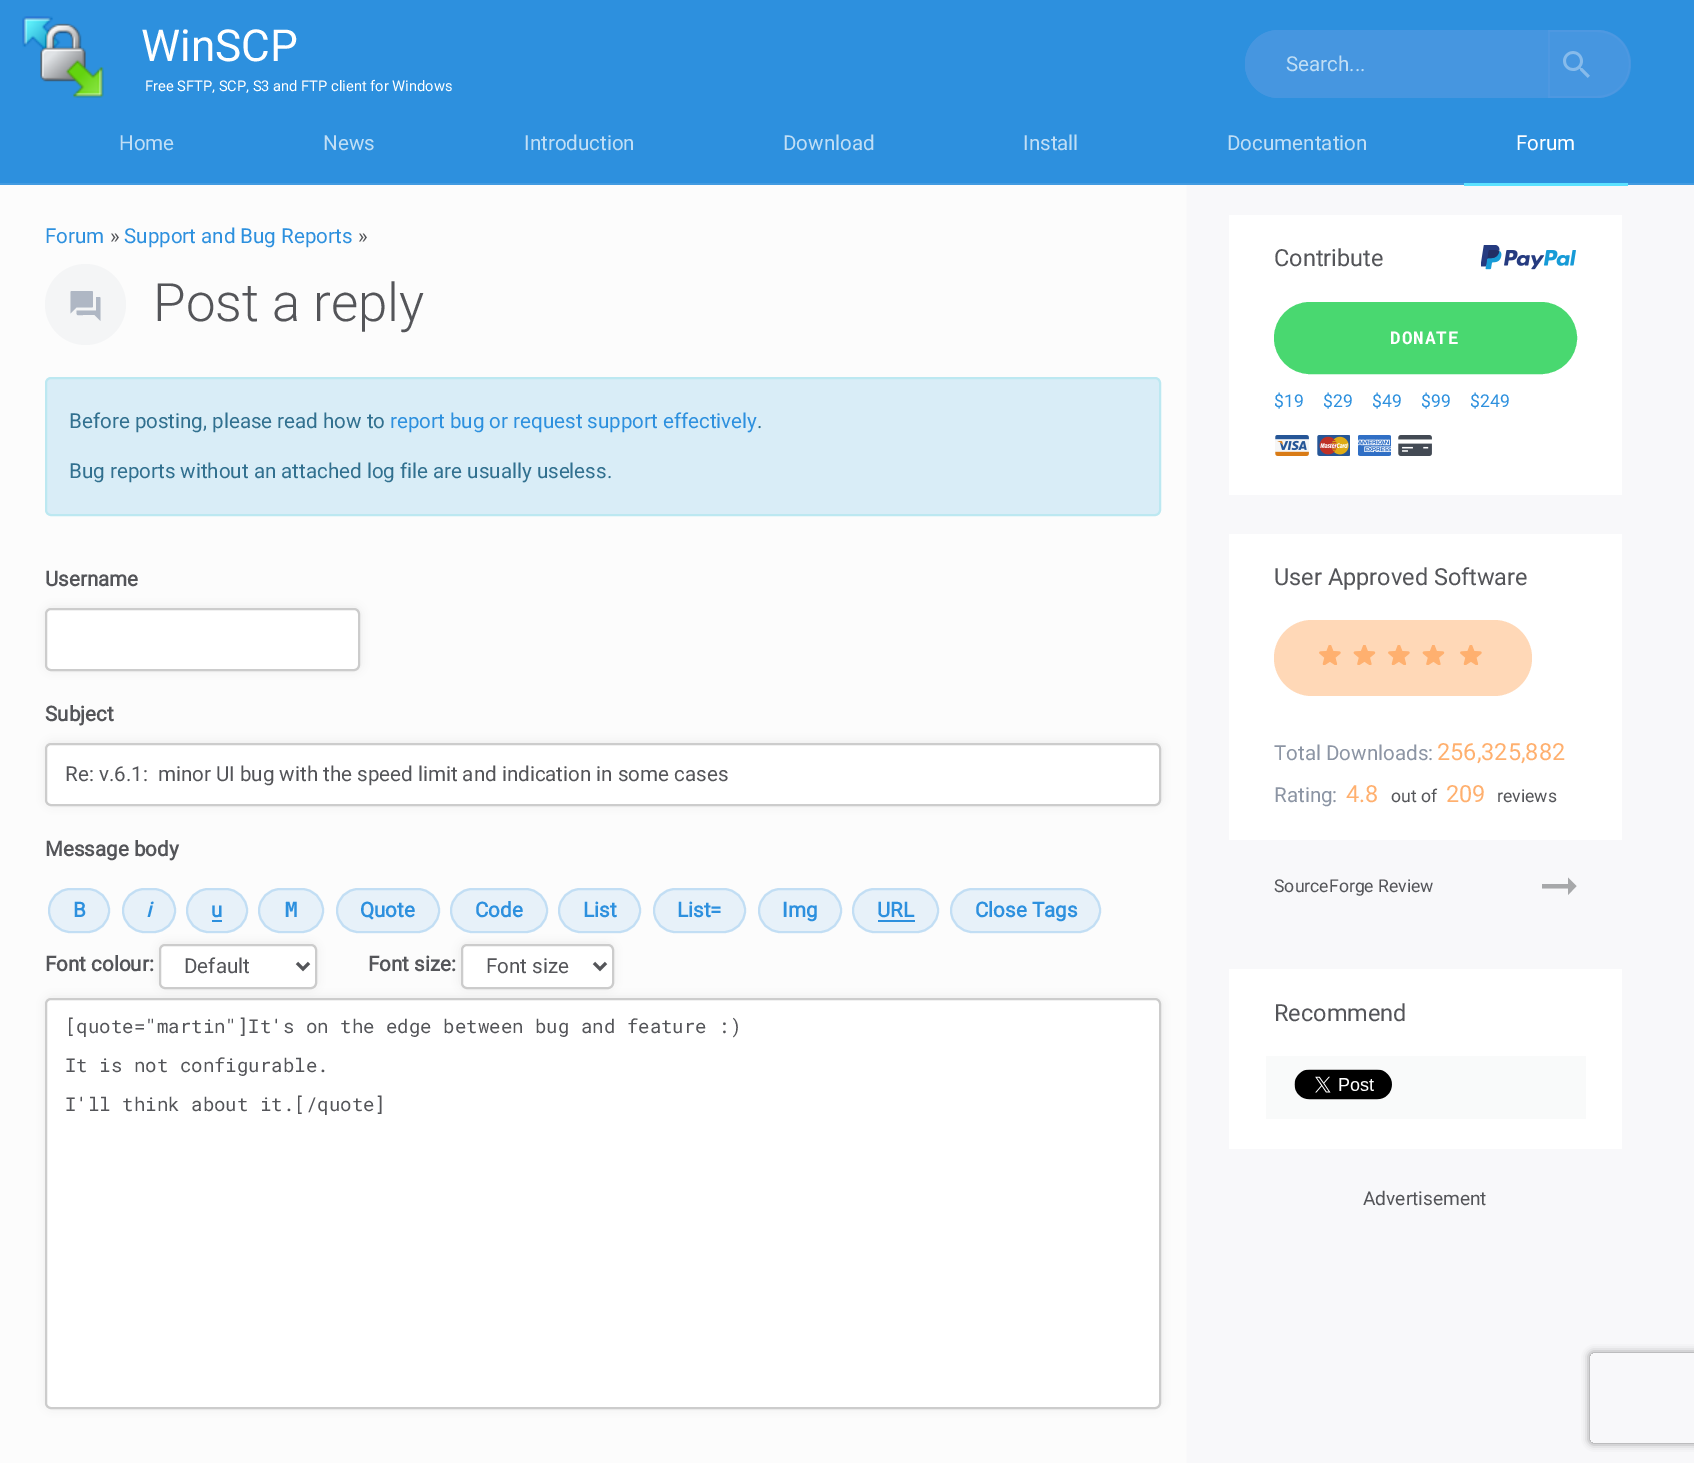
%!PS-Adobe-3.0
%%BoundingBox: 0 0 1694 1463
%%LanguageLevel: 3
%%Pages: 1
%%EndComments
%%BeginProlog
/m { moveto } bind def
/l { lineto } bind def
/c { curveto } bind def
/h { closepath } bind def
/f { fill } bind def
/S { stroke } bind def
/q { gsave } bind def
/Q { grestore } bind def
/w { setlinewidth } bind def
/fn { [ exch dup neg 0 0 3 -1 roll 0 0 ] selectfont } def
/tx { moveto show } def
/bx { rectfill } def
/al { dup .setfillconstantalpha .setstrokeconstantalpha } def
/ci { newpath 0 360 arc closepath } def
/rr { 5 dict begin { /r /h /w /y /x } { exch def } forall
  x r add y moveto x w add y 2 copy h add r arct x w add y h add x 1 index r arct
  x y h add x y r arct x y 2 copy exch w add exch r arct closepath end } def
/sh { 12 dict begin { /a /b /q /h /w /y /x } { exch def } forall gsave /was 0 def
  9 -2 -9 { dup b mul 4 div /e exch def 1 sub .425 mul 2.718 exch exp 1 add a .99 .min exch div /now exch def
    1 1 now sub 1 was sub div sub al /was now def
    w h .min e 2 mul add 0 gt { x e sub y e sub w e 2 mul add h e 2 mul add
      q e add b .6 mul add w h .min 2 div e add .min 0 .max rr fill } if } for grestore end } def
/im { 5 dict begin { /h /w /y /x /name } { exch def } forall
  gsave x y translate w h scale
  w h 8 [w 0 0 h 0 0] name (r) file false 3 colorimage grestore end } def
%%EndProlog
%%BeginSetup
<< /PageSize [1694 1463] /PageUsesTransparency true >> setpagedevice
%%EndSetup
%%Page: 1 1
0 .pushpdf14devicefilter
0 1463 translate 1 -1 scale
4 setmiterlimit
0.176 0.565 0.871 setrgbcolor
0 0 1694 1463 bx
0.259 0.608 0.882 setrgbcolor
0 183 1694 2 bx
(image0.raw) 22 16 82 82 im
/Roboto-Regular 45 fn
1 setgray
(WinSCP) 141 61 tx
/Roboto-Regular 15 fn
(Free SFTP, SCP, S3 and FTP client for Windows) 145 91 tx
0.275 0.588 0.878 setrgbcolor
1279 30 m 1550 30 l 1550 98 l 1279 98 l 1260 98 1245 83 1245 64 c 1245 45 1260 30 1279 30 c h f
1279 30 m 1550 30 l 1550 98 l 1279 98 l 1260 98 1245 82 1245 64 c 1245 45 1260 30 1279 30 c h 1279 32 m 1550 32 l 1550 96 l 1279 96 l 1261 96 1246 82 1246 64 c 1246 46 1261 32 1279 32 c h eofill
/Roboto-Regular 21 fn
0.753 0.871 0.961 setrgbcolor
(Search...) 1286 71 tx
0.7 al
0.318 0.6 0.882 setrgbcolor
1548 30 m 1597 30 l 1616 30 1631 45 1631 64 c 1631 83 1616 98 1597 98 c 1548 98 l h f
1548 30 m 1597 30 l 1615 30 1630 45 1630 64 c 1630 82 1615 98 1597 98 c 1548 98 l h 1548 32 m 1597 32 l 1615 32 1629 46 1629 64 c 1629 82 1615 96 1597 96 c 1548 96 l h eofill
1 al
(image1.raw) 1563 51 27 27 im
0.753 0.871 0.961 setrgbcolor
(Home) 119 150 tx
(News) 323 150 tx
(Introduction) 524 150 tx
(Download) 783 150 tx
(Install) 1023 150 tx
(Documentation) 1227 150 tx
1 setgray
(Forum) 1516 150 tx
q 0 185 m 1694 185 l 1694 1463 l 0 1463 l h clip newpath
<< /ShadingType 2 /ColorSpace /DeviceRGB /Coords [0 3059 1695 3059] /Extend [true true] /Function << /FunctionType 3 /Domain [0 1] /Functions [<< /FunctionType 2 /Domain [0 1] /C0 [0.988 0.988 0.988] /C1 [0.988 0.988 0.988] /N 1 >> << /FunctionType 2 /Domain [0 1] /C0 [0.973 0.973 0.98] /C1 [0.973 0.973 0.98] /N 1 >>] /Bounds [0.7] /Encode [0 1 0 1] >> >> shfill Q
0.357 0.886 1 setrgbcolor
1464 183 164 3 bx
0.176 0.565 0.871 setrgbcolor
(Forum) 45 243 tx
0.329 0.333 0.349 setrgbcolor
(») 110 243 tx
0.176 0.565 0.871 setrgbcolor
(Support and Bug Reports) 124 243 tx
0.329 0.333 0.349 setrgbcolor
(») 358 243 tx
0.957 0.961 0.965 setrgbcolor
85.5 304.5 40.5 ci f
0.686 0.718 0.769 setrgbcolor
99 297 m 96 297 l 96 310.5 l 76.5 310.5 l 76.5 316.5 77 315 83.5 315 c 94.5 315 l 100.5 321 l 100.5 298.5 l 100.5 297.5 100 297 99 297 c h 93 306 m 93 292.5 l 93 291.5 92.5 291 91.5 291 c 72 291 l 71 291 70.5 291.5 70.5 292.5 c 70.5 313.5 l 76.5 307.5 l 91.5 307.5 l 92.5 307.5 93 307 93 306 c h eofill
/Roboto-Light 54 fn
0.329 0.333 0.349 setrgbcolor
(Post a reply) 153 321 tx
0.851 0.929 0.969 setrgbcolor
46 378 1114 137 5 rr q f Q
0.737 0.91 0.945 setrgbcolor
2 w
S
/Roboto-Regular 21 fn
0.192 0.439 0.561 setrgbcolor
(Before posting, please read how to) 69 428 tx
0.176 0.565 0.871 setrgbcolor
(report bug or request support effectively) 390 428 tx
0.192 0.439 0.561 setrgbcolor
(.) 757 428 tx
(Bug reports without an attached log file are usually useless.) 69 478 tx
/Roboto-Bold 21 fn
0.329 0.333 0.349 setrgbcolor
(Username) 45 586 tx
0 setgray
47 609 312 60 5 5 0.1 sh
1 setgray
46 609 313 61 5 rr q f Q
0.8 setgray
S
0.329 0.333 0.349 setrgbcolor
(Subject) 45 721 tx
0 setgray
47 744 1113 60 5 5 0.1 sh
1 setgray
46 744 1114 61 5 rr q f Q
0.8 setgray
S
/Roboto-Regular 21 fn
0.329 0.333 0.349 setrgbcolor
(Re: v.6.1:  minor UI bug with the speed limit and indication in some cases) 65 781 tx
/Roboto-Bold 21 fn
(Message body) 45 856 tx
0.906 0.945 0.976 setrgbcolor
48 888 62 45 22.5 rr f
0.2 al
0.176 0.565 0.871 setrgbcolor
49 889 60 43 21.5 rr S
1 al
(B) 73 917 tx
0 setgray
161 945 154 42 5 5 0.1 sh
0.906 0.945 0.976 setrgbcolor
122 888 54 45 22.5 rr f
0.2 al
0.176 0.565 0.871 setrgbcolor
123 889 52 43 21.5 rr S
/Roboto-BoldItalic 21 fn
1 al
(i) 146 917 tx
0.906 0.945 0.976 setrgbcolor
186 888 62 45 22.5 rr f
0.2 al
0.176 0.565 0.871 setrgbcolor
187 889 60 43 21.5 rr S
/Roboto-Bold 21 fn
1 al
(u) 211 917 tx
212 920 10 2 bx
0.906 0.945 0.976 setrgbcolor
258 888 66 45 22.5 rr f
0.2 al
0.176 0.565 0.871 setrgbcolor
259 889 64 43 21.5 rr S
/DejaVuSansMono-Bold 21 fn
1 al
(M) 285 917 tx
0.906 0.945 0.976 setrgbcolor
336 888 104 45 22.5 rr f
0.2 al
0.176 0.565 0.871 setrgbcolor
337 889 102 43 21.5 rr S
/Roboto-Bold 21 fn
1 al
(Quote) 360 917 tx
0 setgray
462 945 150 42 5 5 0.1 sh
0.906 0.945 0.976 setrgbcolor
450 888 98 45 22.5 rr f
0.2 al
0.176 0.565 0.871 setrgbcolor
451 889 96 43 21.5 rr S
1 al
(Code) 475 917 tx
0.906 0.945 0.976 setrgbcolor
558 888 83 45 22.5 rr f
0.2 al
0.176 0.565 0.871 setrgbcolor
559 889 81 43 21.5 rr S
1 al
(List) 583 917 tx
0.906 0.945 0.976 setrgbcolor
653 888 93 45 22.5 rr f
0.2 al
0.176 0.565 0.871 setrgbcolor
654 889 91 43 21.5 rr S
1 al
(List=) 677 917 tx
0.906 0.945 0.976 setrgbcolor
758 888 84 45 22.5 rr f
0.2 al
0.176 0.565 0.871 setrgbcolor
759 889 82 43 21.5 rr S
1 al
(Img) 782 917 tx
0.906 0.945 0.976 setrgbcolor
852 888 87 45 22.5 rr f
0.2 al
0.176 0.565 0.871 setrgbcolor
853 889 85 43 21.5 rr S
1 al
(URL) 877 917 tx
878 920 37 2 bx
0.906 0.945 0.976 setrgbcolor
950 888 151 45 22.5 rr f
0.2 al
0.176 0.565 0.871 setrgbcolor
951 889 149 43 21.5 rr S
1 al
(Close Tags) 975 917 tx
0.329 0.333 0.349 setrgbcolor
(Font colour:) 45 971 tx
1 setgray
160 945 156 43 5 rr q f Q
0.8 setgray
S
0.329 0.333 0.349 setrgbcolor
3 w
297 963 m 303 969 l 309 963 l S
/Roboto-Regular 21 fn
(Default) 184 973 tx
/Roboto-Bold 21 fn
(Font size:) 368 971 tx
1 setgray
462 945 151 43 5 rr q f Q
0.8 setgray
2 w
S
0.329 0.333 0.349 setrgbcolor
3 w
594 963 m 600 969 l 606 963 l S
/Roboto-Regular 21 fn
(Font size) 486 973 tx
0 setgray
47 999 1113 408 5 5 0.1 sh
1 setgray
46 999 1114 409 5 rr q f Q
0.8 setgray
2 w
S
/RobotoMono-Regular 19.5 fn
0.329 0.333 0.349 setrgbcolor
([quote="martin"]It's on the edge between bug and feature :\)) 65 1033 tx
(It is not configurable.) 65 1072 tx
(I'll think about it.[/quote]) 65 1111 tx
q
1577 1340 m 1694 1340 l 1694 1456 l 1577 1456 l h 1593 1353 m 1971 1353 l 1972.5 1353 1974 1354.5 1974 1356 c 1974 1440 l 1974 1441.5 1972.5 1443 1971 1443 c 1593 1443 l 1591.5 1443 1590 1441.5 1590 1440 c 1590 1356 l 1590 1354.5 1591.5 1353 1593 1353 c h eoclip newpath
0.502 setgray
1590 1353 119 90 3 4 1 sh
Q
1 setgray
1229 215 393 280 bx
/Roboto-Regular 24 fn
0.329 0.333 0.349 setrgbcolor
(Contribute) 1274 266 tx
(image2.raw) 1481 245 95 25 im
0.286 0.847 0.439 setrgbcolor
1275 303 301 70 35 rr q f Q
S
/RobotoMono-Bold 18 fn
1 setgray
1390 344 m 1 0 (DONATE) ashow
/Roboto-Regular 18 fn
0.176 0.565 0.871 setrgbcolor
($19) 1274 407 tx
($29) 1323 407 tx
($49) 1372 407 tx
($99) 1421 407 tx
($249) 1470 407 tx
(image3.raw) 1275 435 34 21 im
(image4.raw) 1317 435 33 21 im
(image5.raw) 1358 435 33 21 im
(image6.raw) 1398 435 34 21 im
1 setgray
1229 534 393 306 bx
/Roboto-Regular 24 fn
0.329 0.333 0.349 setrgbcolor
(User Approved Software) 1274 585 tx
1 0.847 0.718 setrgbcolor
1274 620 258 76 38 rr f
(image7.raw) 1319 645 163 20 im
/Roboto-Regular 21 fn
0.549 0.584 0.643 setrgbcolor
(Total Downloads:) 1274 760 tx
/Roboto-Regular 24 fn
1 0.69 0.435 setrgbcolor
(256,325,882) 1437 760 tx
/Roboto-Regular 21 fn
0.549 0.584 0.643 setrgbcolor
(Rating:) 1274 802 tx
/Roboto-Regular 24 fn
1 0.69 0.435 setrgbcolor
(4.8) 1346 802 tx
/Roboto-Regular 18 fn
0.329 0.333 0.349 setrgbcolor
(out of) 1391 802 tx
/Roboto-Regular 24 fn
1 0.69 0.435 setrgbcolor
(209) 1446 802 tx
/Roboto-Regular 18 fn
0.329 0.333 0.349 setrgbcolor
(reviews) 1497 802 tx
(SourceForge Review) 1274 892 tx
0.655 0.659 0.667 setrgbcolor
1542 884 m 1542 888.5 l 1568 888.5 l 1568 895 l 1576.5 886 l 1568 877.5 l 1568 884 l h eofill
1 setgray
1229 969 393 180 bx
/Roboto-Regular 24 fn
0.329 0.333 0.349 setrgbcolor
(Recommend) 1274 1021 tx
0.976 0.98 0.98 setrgbcolor
1266 1056 320 63 bx
(image8.raw) 1294 1069 98 31 im
/Roboto-Regular 19.5 fn
0.329 0.333 0.349 setrgbcolor
(Advertisement) 1363 1205 tx
.poppdf14devicefilter showpage
%%EOF
